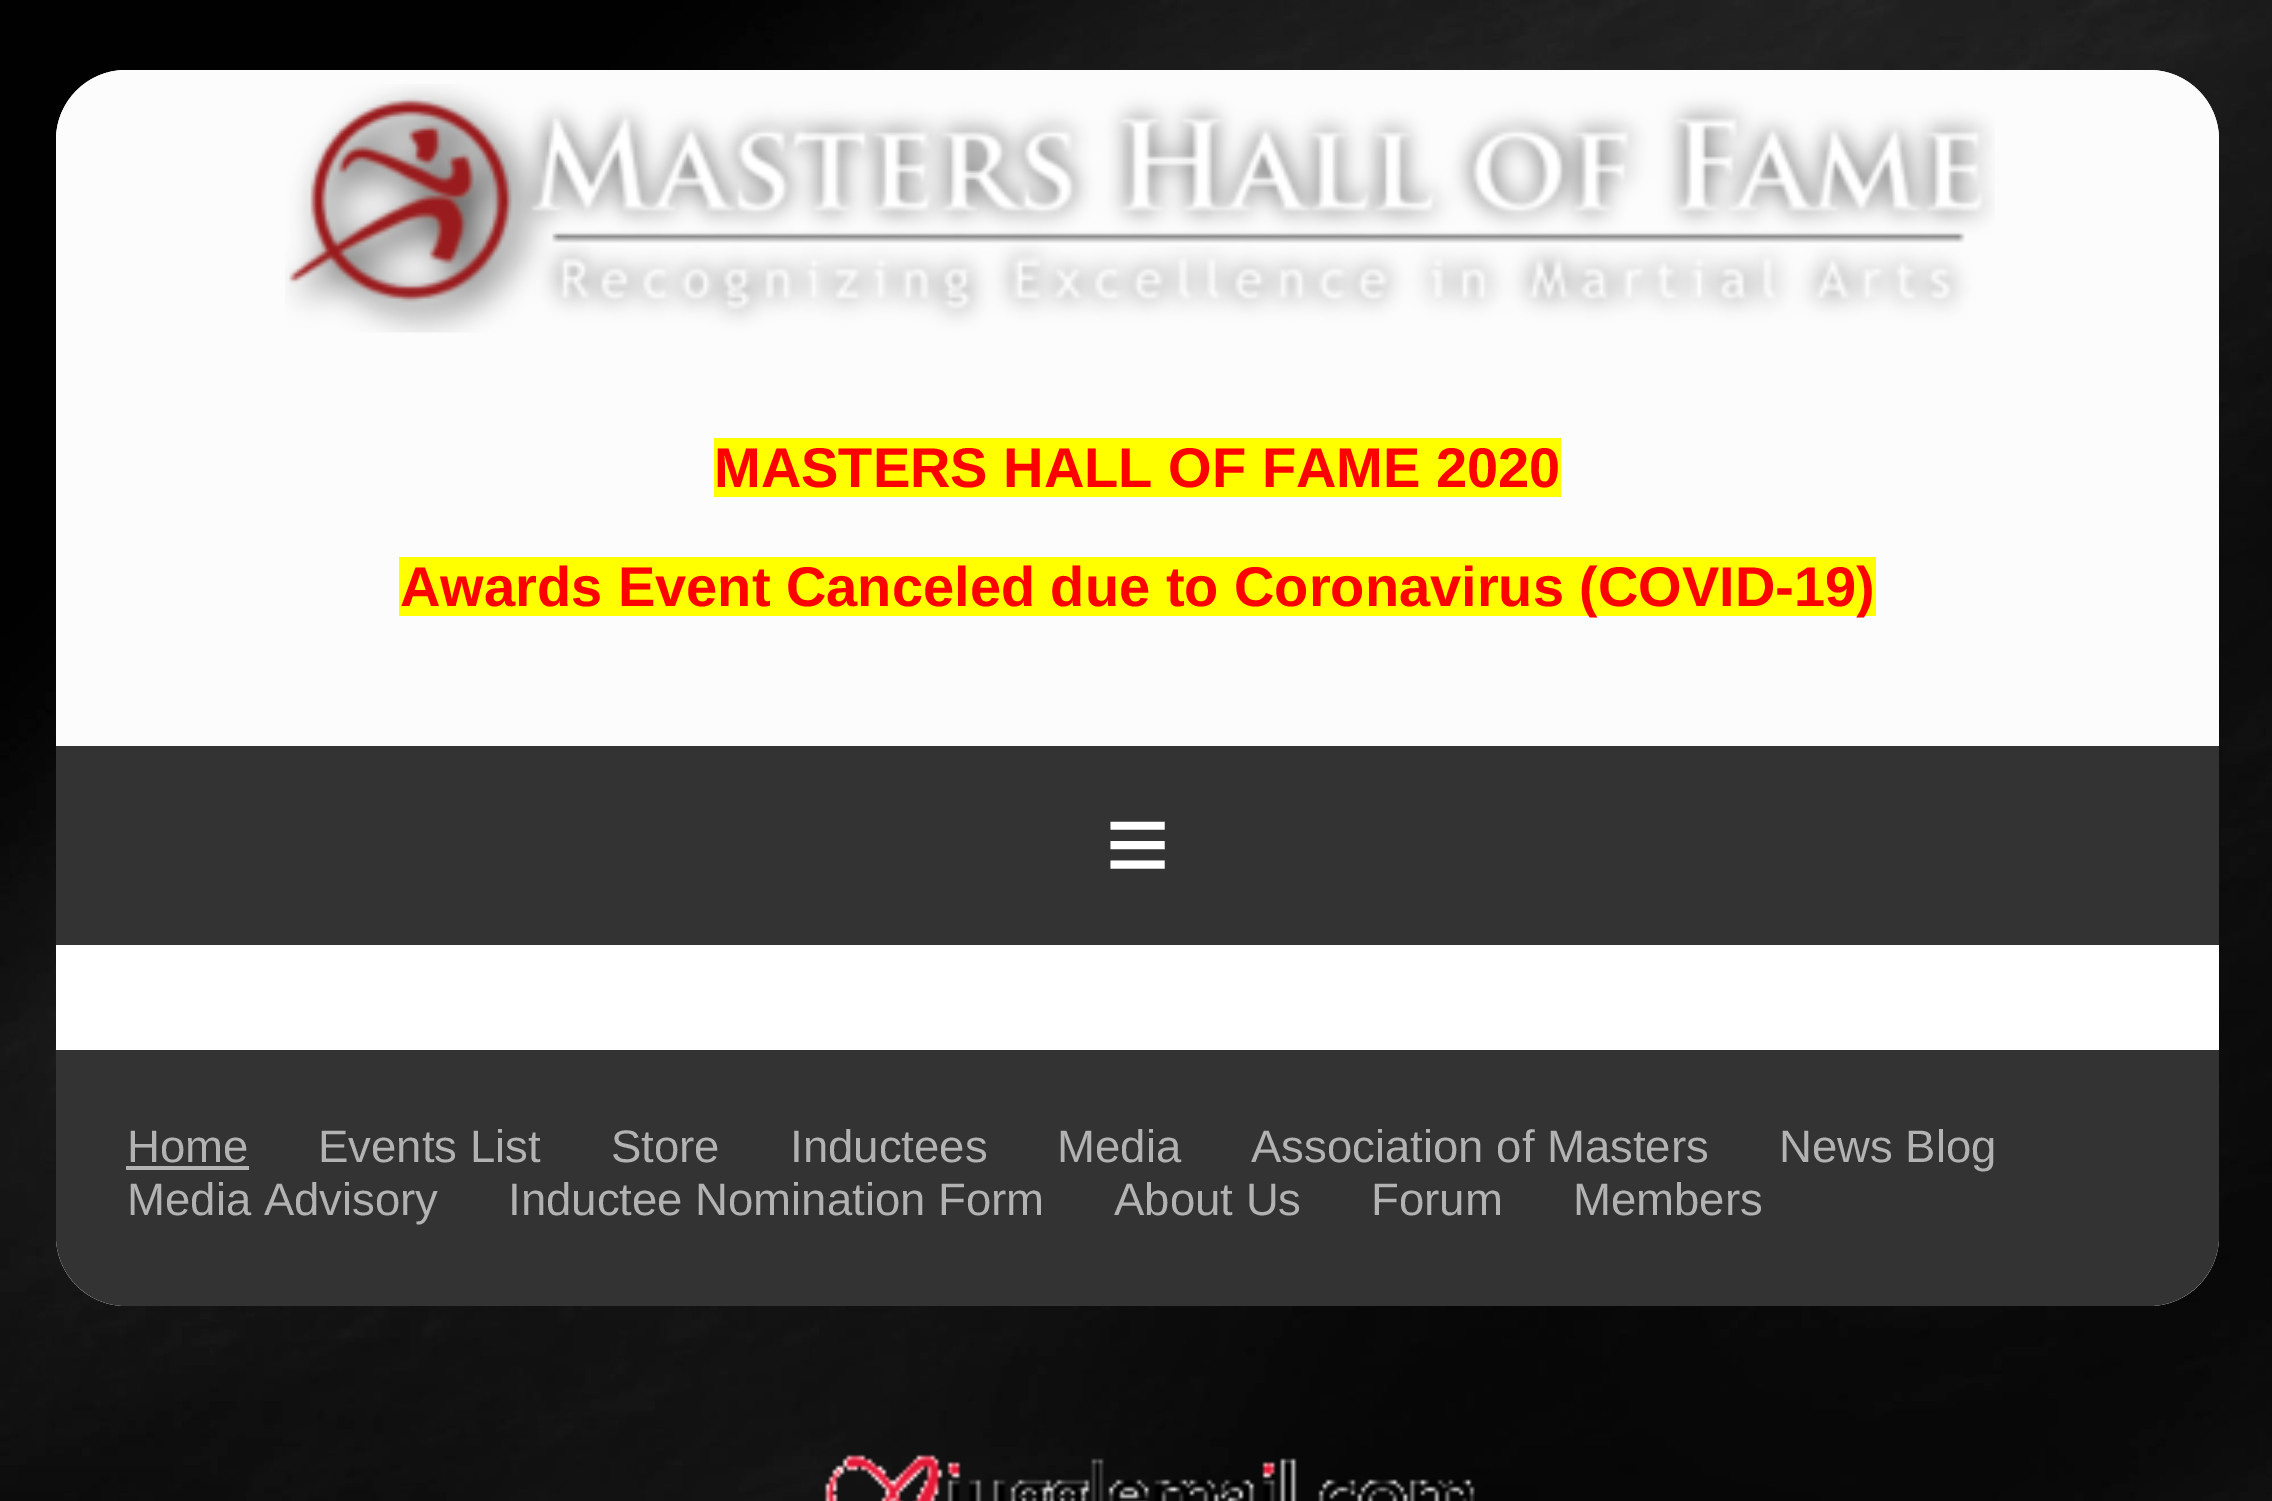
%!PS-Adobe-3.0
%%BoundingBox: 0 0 2272 1501
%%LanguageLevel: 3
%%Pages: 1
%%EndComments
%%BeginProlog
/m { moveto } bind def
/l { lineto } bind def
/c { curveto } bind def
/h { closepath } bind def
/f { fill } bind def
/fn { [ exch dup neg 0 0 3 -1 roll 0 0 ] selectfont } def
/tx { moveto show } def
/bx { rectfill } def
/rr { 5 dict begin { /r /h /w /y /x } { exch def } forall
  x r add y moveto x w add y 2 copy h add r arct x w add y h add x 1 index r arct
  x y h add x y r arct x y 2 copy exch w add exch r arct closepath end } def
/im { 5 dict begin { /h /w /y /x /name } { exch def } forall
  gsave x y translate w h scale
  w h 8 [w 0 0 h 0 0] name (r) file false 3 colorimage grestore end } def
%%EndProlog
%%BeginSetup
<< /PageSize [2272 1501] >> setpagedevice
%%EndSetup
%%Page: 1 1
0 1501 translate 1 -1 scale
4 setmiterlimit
1 setgray
0 0 2272 1501 bx
(image0.raw) 0 0 2272 1501 im
56 70 2163 1236 70 rr f
0.988 setgray
126 70 m 2149 70 l 2187.5 70 2219 101.5 2219 140 c 2219 746 l 56 746 l 56 140 l 56 101.5 87.5 70 126 70 c h f
(image1.raw) 285 84 1710 249 im
1 1 0 setrgbcolor
714 438 847 59 bx
/LiberationSans-Bold 56 fn
1 0 0 setrgbcolor
(MASTERS HALL OF FAME 2020) 714 487 tx
1 1 0 setrgbcolor
399 557 1477 59 bx
1 0 0 setrgbcolor
(Awards Event Canceled due to Coronavirus \(COVID-19\)) 400 606 tx
0.204 0.2 0.2 setrgbcolor
56 746 2163 199 bx
/LiberationSans-Regular 112 fn
1 setgray
(≡) 1105 882 tx
0.204 0.2 0.2 setrgbcolor
56 1050 m 2219 1050 l 2219 1236 l 2219 1274.5 2187.5 1306 2149 1306 c 126 1306 l 87.5 1306 56 1274.5 56 1236 c h f
/LiberationSans-Regular 45.5 fn
0.702 0.698 0.698 setrgbcolor
(Home) 127 1162 tx
126 1166 123 4 bx
(Events List) 318 1162 tx
(Store) 611 1162 tx
(Inductees) 790 1162 tx
(Media) 1057 1162 tx
(Association of Masters) 1251 1162 tx
(News Blog) 1779 1162 tx
(Media Advisory) 127 1215 tx
(Inductee Nomination Form) 508 1215 tx
(About Us) 1114 1215 tx
(Forum) 1371 1215 tx
(Members) 1573 1215 tx
(image2.raw) 824 1454 651 47 im
showpage
%%EOF
